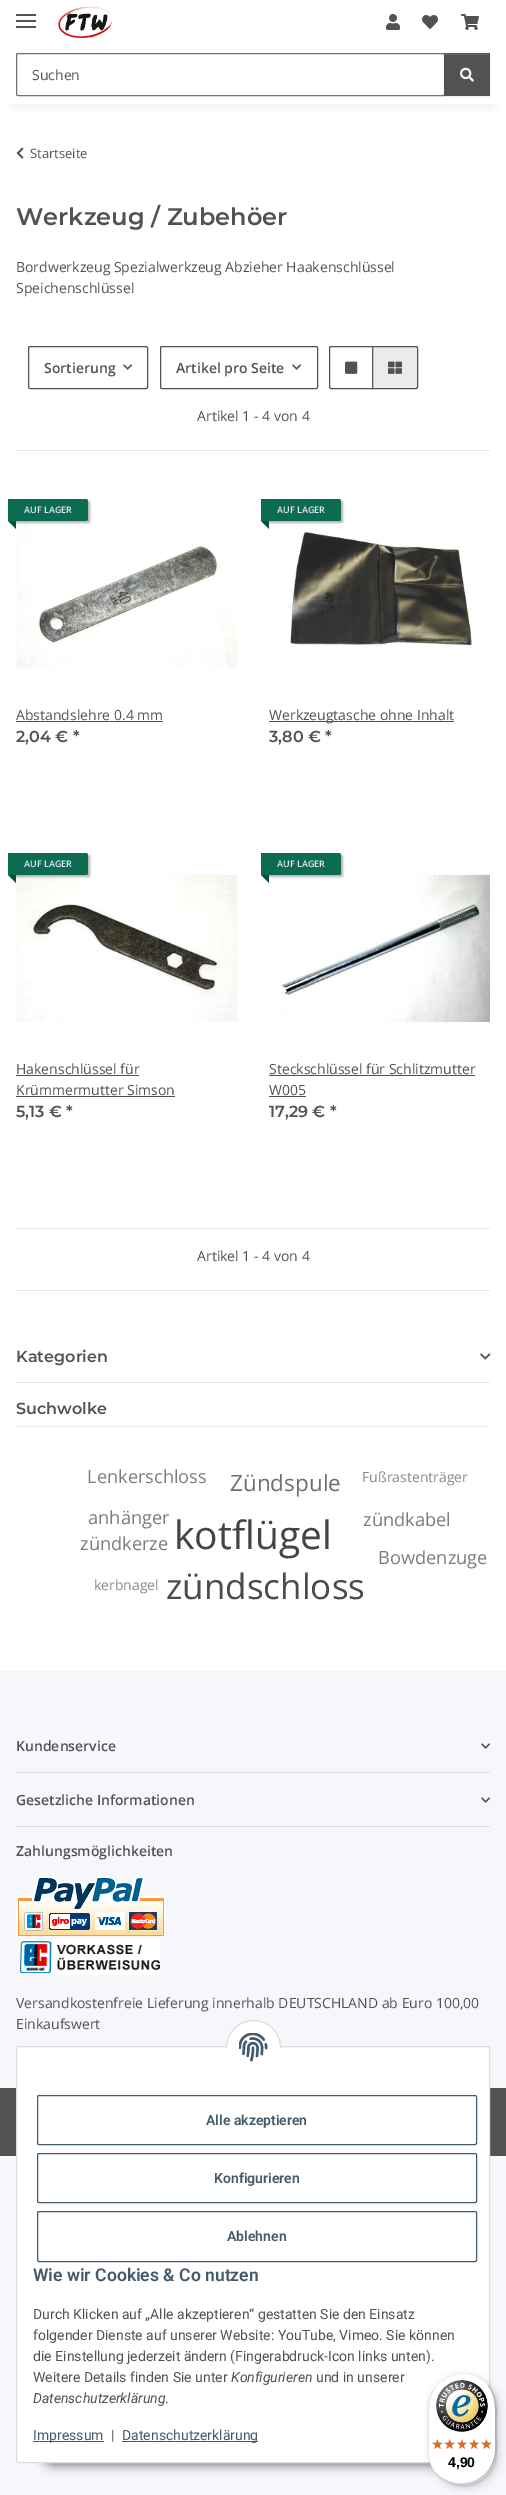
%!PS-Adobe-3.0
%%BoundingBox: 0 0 506 2495
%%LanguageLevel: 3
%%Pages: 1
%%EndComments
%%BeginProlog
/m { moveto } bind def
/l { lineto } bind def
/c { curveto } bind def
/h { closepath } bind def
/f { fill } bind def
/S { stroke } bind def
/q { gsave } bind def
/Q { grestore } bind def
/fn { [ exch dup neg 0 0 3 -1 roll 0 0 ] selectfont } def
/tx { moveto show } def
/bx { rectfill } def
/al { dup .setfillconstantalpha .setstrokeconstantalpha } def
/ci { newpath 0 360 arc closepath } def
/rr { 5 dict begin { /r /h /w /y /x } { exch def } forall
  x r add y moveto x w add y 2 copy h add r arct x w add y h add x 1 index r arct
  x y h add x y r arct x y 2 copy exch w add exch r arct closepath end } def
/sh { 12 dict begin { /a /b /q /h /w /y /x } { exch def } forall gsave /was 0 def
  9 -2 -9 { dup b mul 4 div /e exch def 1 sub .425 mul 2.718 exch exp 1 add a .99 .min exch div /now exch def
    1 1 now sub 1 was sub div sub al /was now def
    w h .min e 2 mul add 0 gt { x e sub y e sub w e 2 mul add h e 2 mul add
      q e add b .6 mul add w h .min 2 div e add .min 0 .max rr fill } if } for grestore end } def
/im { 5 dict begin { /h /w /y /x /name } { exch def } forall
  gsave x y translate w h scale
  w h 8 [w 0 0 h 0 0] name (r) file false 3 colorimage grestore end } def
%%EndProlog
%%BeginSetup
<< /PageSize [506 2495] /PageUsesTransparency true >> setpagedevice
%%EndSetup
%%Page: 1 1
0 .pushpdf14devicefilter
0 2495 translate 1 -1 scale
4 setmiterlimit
0.961 0.969 0.98 setrgbcolor
0 0 506 2495 bx
1 setgray
0 104 506 1567 bx
0 setgray
12 28 482 80 0 4.5 0.06 sh
1 setgray
0 0 506 104 bx
0.322 setgray
16 20 20 2 1 rr f
16 14 20 2 1 rr f
16 26 20 2 1 rr f
(image0.raw) 58 6 54 32 im
(image1.raw) 386 14 14 16 im
(image2.raw) 422 15 16 14 im
(image3.raw) 461 14 18 16 im
0.439 setgray
16.5 53.5 428 42 1.5 rr S
/OpenSans-Regular 14 fn
0.322 setgray
(Suchen) 32 80 tx
0 setgray
444 54 46 43 0 0.5 0.07 sh
0.322 setgray
444 53 46 43 bx
0.424 setgray
445 54 44 1 bx
(image4.raw) 460 67 14 15 im
(image5.raw) 16 147 8 12 im
/OpenSans-Regular 13 fn
0.322 setgray
(Startseite) 30 158 tx
/Montserrat-SemiBold 24 fn
(Werkzeug / Zubehöer) 16 225 tx
/OpenSans-Regular 14 fn
(Bordwerkzeug Spezialwerkzeug Abzieher Haakenschlüssel) 16 272 tx
(Speichenschlüssel) 16 293 tx
28.5 346.5 119 42 1.5 rr S
/OpenSans-SemiBold 14 fn
(Sortierung) 44 373 tx
(image6.raw) 123 364 9 6 im
160.5 346.5 157 42 1.5 rr S
(Artikel pro Seite) 176 373 tx
(image6.raw) 292 364 9 6 im
331 346.5 m 372.5 346.5 l 372.5 388.5 l 331 388.5 l 330 388.5 329.5 388 329.5 387 c 329.5 348 l 329.5 347 330 346.5 331 346.5 c h S
(image7.raw) 345 361 13 13 im
0.922 setgray
372.5 346.5 m 416 346.5 l 417 346.5 417.5 347 417.5 348 c 417.5 387 l 417.5 388 417 388.5 416 388.5 c 372.5 388.5 l h q f Q
0.322 setgray
S
(image8.raw) 388 361 14 13 im
/OpenSans-Regular 14 fn
(Artikel 1 - 4 von 4) 197 421 tx
0.902 setgray
16 450 474 1 bx
(image9.raw) 16 520 221 150 im
0 setgray
10 501 80 22 2 1 0.3 sh
0.043 0.424 0.318 setrgbcolor
8 499 m 86 499 l 87 499 88 500 88 501 c 88 519 l 88 520 87 521 86 521 c 8 521 l h f
/OpenSans-SemiBold 9 fn
0.882 0.906 0.941 setrgbcolor
(AUF LAGER) 24 513 tx
0.031 0.314 0.235 setrgbcolor
16 521 m 16 529 l 8 521 l h f
/OpenSans-Regular 14 fn
0.322 setgray
(Abstandslehre 0.4 mm) 16 720 tx
16 721 147 1 bx
/Montserrat-SemiBold 16 fn
(2,04 € *) 16 742 tx
0 setgray
263 501 80 22 2 1 0.3 sh
0.043 0.424 0.318 setrgbcolor
261 499 m 339 499 l 340 499 341 500 341 501 c 341 519 l 341 520 340 521 339 521 c 261 521 l h f
/OpenSans-SemiBold 9 fn
0.882 0.906 0.941 setrgbcolor
(AUF LAGER) 277 513 tx
0.031 0.314 0.235 setrgbcolor
269 521 m 269 529 l 261 521 l h f
(image10.raw) 288 529 186 120 im
0.322 setgray
269 721 185 1 bx
/OpenSans-Regular 14 fn
(Werkzeugtasche ohne Inhalt) 269 720 tx
/Montserrat-SemiBold 16 fn
(3,80 € *) 269 742 tx
(image11.raw) 16 874 221 148 im
0 setgray
10 855 80 22 2 1 0.3 sh
0.043 0.424 0.318 setrgbcolor
8 853 m 86 853 l 87 853 88 854 88 855 c 88 873 l 88 874 87 875 86 875 c 8 875 l h f
/OpenSans-SemiBold 9 fn
0.882 0.906 0.941 setrgbcolor
(AUF LAGER) 24 867 tx
0.031 0.314 0.235 setrgbcolor
16 875 m 16 883 l 8 875 l h f
/OpenSans-Regular 14 fn
0.322 setgray
(Hakenschlüssel für) 16 1074 tx
16 1075 123 1 bx
(Krümmermutter Simson) 16 1095 tx
16 1096 159 1 bx
/Montserrat-SemiBold 16 fn
(5,13 € *) 16 1117 tx
(image12.raw) 281 874 209 149 im
0 setgray
263 855 80 22 2 1 0.3 sh
0.043 0.424 0.318 setrgbcolor
261 853 m 339 853 l 340 853 341 854 341 855 c 341 873 l 341 874 340 875 339 875 c 261 875 l h f
/OpenSans-SemiBold 9 fn
0.882 0.906 0.941 setrgbcolor
(AUF LAGER) 277 867 tx
0.031 0.314 0.235 setrgbcolor
269 875 m 269 883 l 261 875 l h f
/OpenSans-Regular 14 fn
0.322 setgray
(Steckschlüssel für Schlitzmutter) 269 1074 tx
269 1075 206 1 bx
(W005) 269 1095 tx
269 1096 37 1 bx
/Montserrat-SemiBold 16 fn
(17,29 € *) 269 1117 tx
0.902 setgray
16 1228 474 1 bx
/OpenSans-Regular 14 fn
0.322 setgray
(Artikel 1 - 4 von 4) 197 1261 tx
0.902 setgray
16 1290 474 1 bx
/Montserrat-SemiBold 16 fn
0.322 setgray
(Kategorien) 16 1362 tx
(image13.raw) 480 1353 11 7 im
0.902 setgray
16 1382 474 1 bx
0.922 setgray
16 1426 474 1 bx
0.322 setgray
(Suchwolke) 16 1414 tx
/OpenSans-Regular 18.25 fn
0.486 setgray
(Lenkerschloss) 87 1483 tx
/OpenSans-Regular 22.5 fn
0.431 setgray
(Zündspule) 230 1491 tx
/OpenSans-Regular 14 fn
0.537 setgray
(Fußrastenträger) 362 1482 tx
/OpenSans-Regular 18.25 fn
0.486 setgray
(anhänger) 88 1524 tx
/OpenSans-Regular 39 fn
0.271 setgray
(kotflügel) 174 1549 tx
/OpenSans-Regular 18.25 fn
0.486 setgray
(zündkabel) 363 1526 tx
(zündkerze) 80 1550 tx
(Bowdenzuge) 378 1564 tx
/OpenSans-Regular 14 fn
0.537 setgray
(kerbnagel) 94 1590 tx
/OpenSans-Regular 35 fn
0.294 setgray
(zündschloss) 166 1599 tx
/OpenSans-SemiBold 14 fn
0.322 setgray
(Kundenservice) 16 1751 tx
(image14.raw) 481 1743 9 6 im
0.867 0.871 0.882 setrgbcolor
16 1772 474 1 bx
0.322 setgray
(Gesetzliche Informationen) 16 1805 tx
(image14.raw) 481 1797 9 6 im
0.867 0.871 0.882 setrgbcolor
16 1826 474 1 bx
0.322 setgray
(Zahlungsmöglichkeiten) 16 1856 tx
(image15.raw) 16 1876 150 99 im
/OpenSans-Regular 14 fn
(Versandkostenfreie Lieferung innerhalb DEUTSCHLAND ab Euro 100,00) 16 2008 tx
(Einkaufswert) 16 2029 tx
0 2088 506 68 bx
0 setgray
41 2434 424 32 16 5 0.45 sh
1 setgray
16.5 2046.5 473 416 1.5 rr q f Q
0.867 setgray
S
1 setgray
253.5 2047.5 27 ci q f Q
0.867 setgray
S
1 setgray
226 2048 55 27 bx
(image16.raw) 239 2033 29 29 im
0.263 0.353 0.42 setrgbcolor
37.5 2095.5 439 49 1.5 rr S
/Roboto-SemiBold 14 fn
(Alle akzeptieren) 206 2125 tx
37.5 2153.5 439 49 1.5 rr S
(Konfigurieren) 214 2183 tx
37.5 2211.5 439 50 1.5 rr S
(Ablehnen) 227 2241 tx
/Roboto-SemiBold 17.6 fn
(Wie wir Cookies & Co nutzen) 33 2281 tx
/Roboto-Regular 14 fn
0.322 setgray
(Durch Klicken auf „Alle akzeptieren“ gestatten Sie den Einsatz) 33 2319 tx
(folgender Dienste auf unserer Website: YouTube, Vimeo. Sie können) 33 2340 tx
(die Einstellung jederzeit ändern \(Fingerabdruck-Icon links unten\).) 33 2361 tx
(Weitere Details finden Sie unter) 33 2382 tx
/Roboto-Italic 14 fn
(Konfigurieren) 231 2382 tx
/Roboto-Regular 14 fn
(und in unserer) 316 2382 tx
/Roboto-Italic 14 fn
(Datenschutzerklärung) 33 2403 tx
/Roboto-Regular 14 fn
(.) 165 2403 tx
0.263 0.353 0.42 setrgbcolor
33 2441 71 1 bx
(Impressum) 33 2440 tx
0.322 setgray
(|) 111 2440 tx
0.263 0.353 0.42 setrgbcolor
122 2441 136 1 bx
(Datenschutzerklärung) 122 2440 tx
0 setgray
431 2376 68 112 34 4 0.15 sh
429 2374 68 112 34 1 0.15 sh
1 setgray
428 2373 68 112 34 rr f
0.898 setgray
463 2374 m 471 2374 479 2377 485 2382 c 468 2367 440 2373 431 2394 c 426 2404 428 2418 428 2429 c 428 2444 425 2461 437 2474 c 432 2468 429 2460 429 2452 c 429 2408 l 429 2389 444 2374 463 2374 c h f
0.2 al
0 setgray
439 2476 m 456 2491 484 2485 493 2464 c 498 2454 496 2440 496 2429 c 496 2414 499 2397 487 2384 c 497 2397 495 2413 495 2428 c 495 2439 497 2453 492 2463 c 484 2484 457 2490 439 2476 c h f
0.196 setgray
435 2472 m 442 2480 451 2485 462 2485 c 481 2485 496 2470 496 2451 c 496 2407 l 496 2396 491 2387 483 2380 c 490 2387 495 2396 495 2406 c 495 2450 l 495 2469 480 2484 461 2484 c 451 2484 442 2479 435 2472 c h f
0.3 al
1 setgray
428 2450 m 428 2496 496 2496 496 2450 c 496 2469 480 2484 462 2484 c 443 2484 428 2469 428 2450 c h f
1 al
(image17.raw) 436 2380 52 52 im
(image18.raw) 432 2439 11 10 im
(image19.raw) 445 2439 10 10 im
(image20.raw) 457 2439 10 10 im
(image21.raw) 469 2439 11 10 im
(image21.raw) 481 2439 11 10 im
(image22.raw) 432 2439 11 10 im
(image23.raw) 444 2439 11 10 im
(image24.raw) 457 2439 10 10 im
(image25.raw) 469 2439 10 10 im
(image26.raw) 481 2439 10 10 im
/LiberationSans-Bold 14 fn
0 setgray
(4,90) 448 2467 tx
.poppdf14devicefilter showpage
%%EOF
